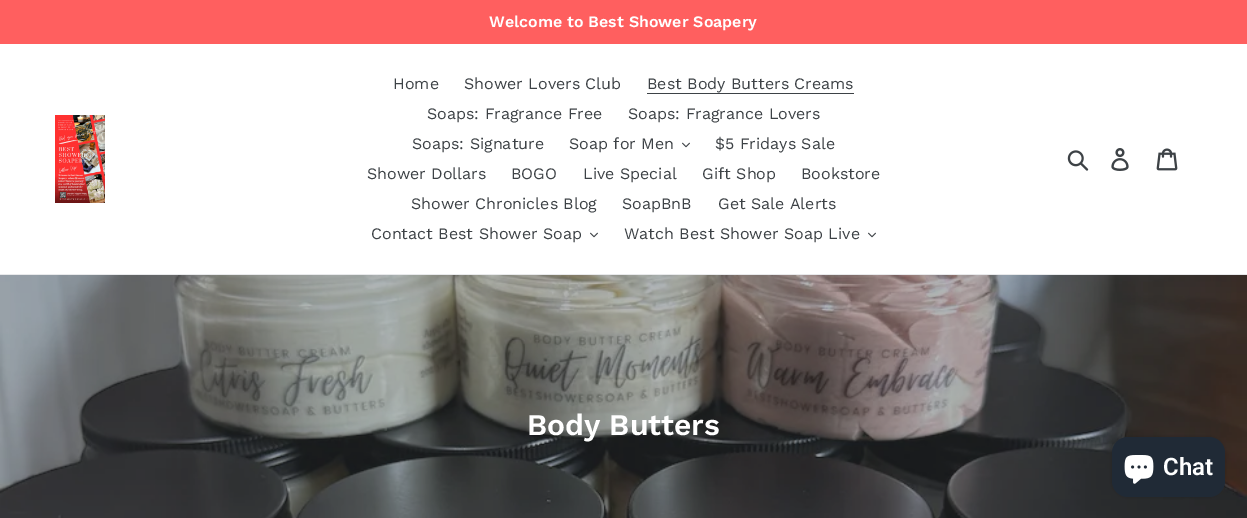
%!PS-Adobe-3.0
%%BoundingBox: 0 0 1247 518
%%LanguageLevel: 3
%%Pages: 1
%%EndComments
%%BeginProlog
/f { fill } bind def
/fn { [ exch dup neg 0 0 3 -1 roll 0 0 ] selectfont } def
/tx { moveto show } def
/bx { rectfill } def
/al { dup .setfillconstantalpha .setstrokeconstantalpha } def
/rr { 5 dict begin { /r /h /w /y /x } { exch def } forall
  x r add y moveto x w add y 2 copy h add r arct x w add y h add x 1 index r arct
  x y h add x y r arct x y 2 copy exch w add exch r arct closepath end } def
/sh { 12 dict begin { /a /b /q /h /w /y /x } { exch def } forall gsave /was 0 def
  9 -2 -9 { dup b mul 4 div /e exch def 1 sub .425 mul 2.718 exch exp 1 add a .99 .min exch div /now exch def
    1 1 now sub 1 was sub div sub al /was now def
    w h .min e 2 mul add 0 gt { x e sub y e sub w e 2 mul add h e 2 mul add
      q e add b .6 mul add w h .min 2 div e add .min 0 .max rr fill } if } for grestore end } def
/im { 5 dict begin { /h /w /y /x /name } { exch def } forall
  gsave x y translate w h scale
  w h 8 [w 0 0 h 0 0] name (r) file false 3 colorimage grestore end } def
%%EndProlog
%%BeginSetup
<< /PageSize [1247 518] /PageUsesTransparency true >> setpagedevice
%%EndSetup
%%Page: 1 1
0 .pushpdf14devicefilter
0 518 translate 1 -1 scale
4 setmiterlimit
1 setgray
0 0 1247 518 bx
1 0.373 0.373 setrgbcolor
0 0 1247 44 bx
/WorkSans-SemiBold 16 fn
1 setgray
(Welcome to Best Shower Soapery) 489 27 tx
0.91 0.914 0.922 setrgbcolor
0 274 1247 1 bx
(image0.raw) 55 115 50 88 im
/WorkSans-Regular 16 fn
0.239 0.259 0.275 setrgbcolor
(Home) 393 89 tx
(Shower Lovers Club) 464 89 tx
(Best Body Butters Creams) 647 89 tx
647 93 207 1 bx
(Soaps: Fragrance Free) 427 119 tx
(Soaps: Fragrance Lovers) 628 119 tx
(Soaps: Signature) 412 149 tx
(Soap for Men) 569 149 tx
(image1.raw) 682 142 8 6 im
($5 Fridays Sale) 715 149 tx
(Shower Dollars) 367 179 tx
(BOGO) 511 179 tx
(Live Special) 583 179 tx
(Gift Shop) 702 179 tx
(Bookstore) 801 179 tx
(Shower Chronicles Blog) 411 209 tx
(SoapBnB) 622 209 tx
(Get Sale Alerts) 718 209 tx
(Contact Best Shower Soap) 371 239 tx
(image1.raw) 590 232 8 6 im
(Watch Best Shower Soap Live) 624 239 tx
(image1.raw) 868 232 8 6 im
(image2.raw) 1067 150 22 21 im
(image3.raw) 1111 148 18 23 im
(image4.raw) 1156 148 22 23 im
(image5.raw) 0 275 1247 243 im
/WorkSans-SemiBold 30 fn
1 setgray
(Body Butters) 527 435 tx
0 setgray
1112 437 113 60 16 2.5 0.15 sh
0.125 0.165 0.212 setrgbcolor
1112 437 113 60 16 rr f
(image6.raw) 1124 455 30 29 im
/Roboto-SemiBold 24 fn
1 setgray
(Chat) 1163 475 tx
.poppdf14devicefilter showpage
%%EOF
